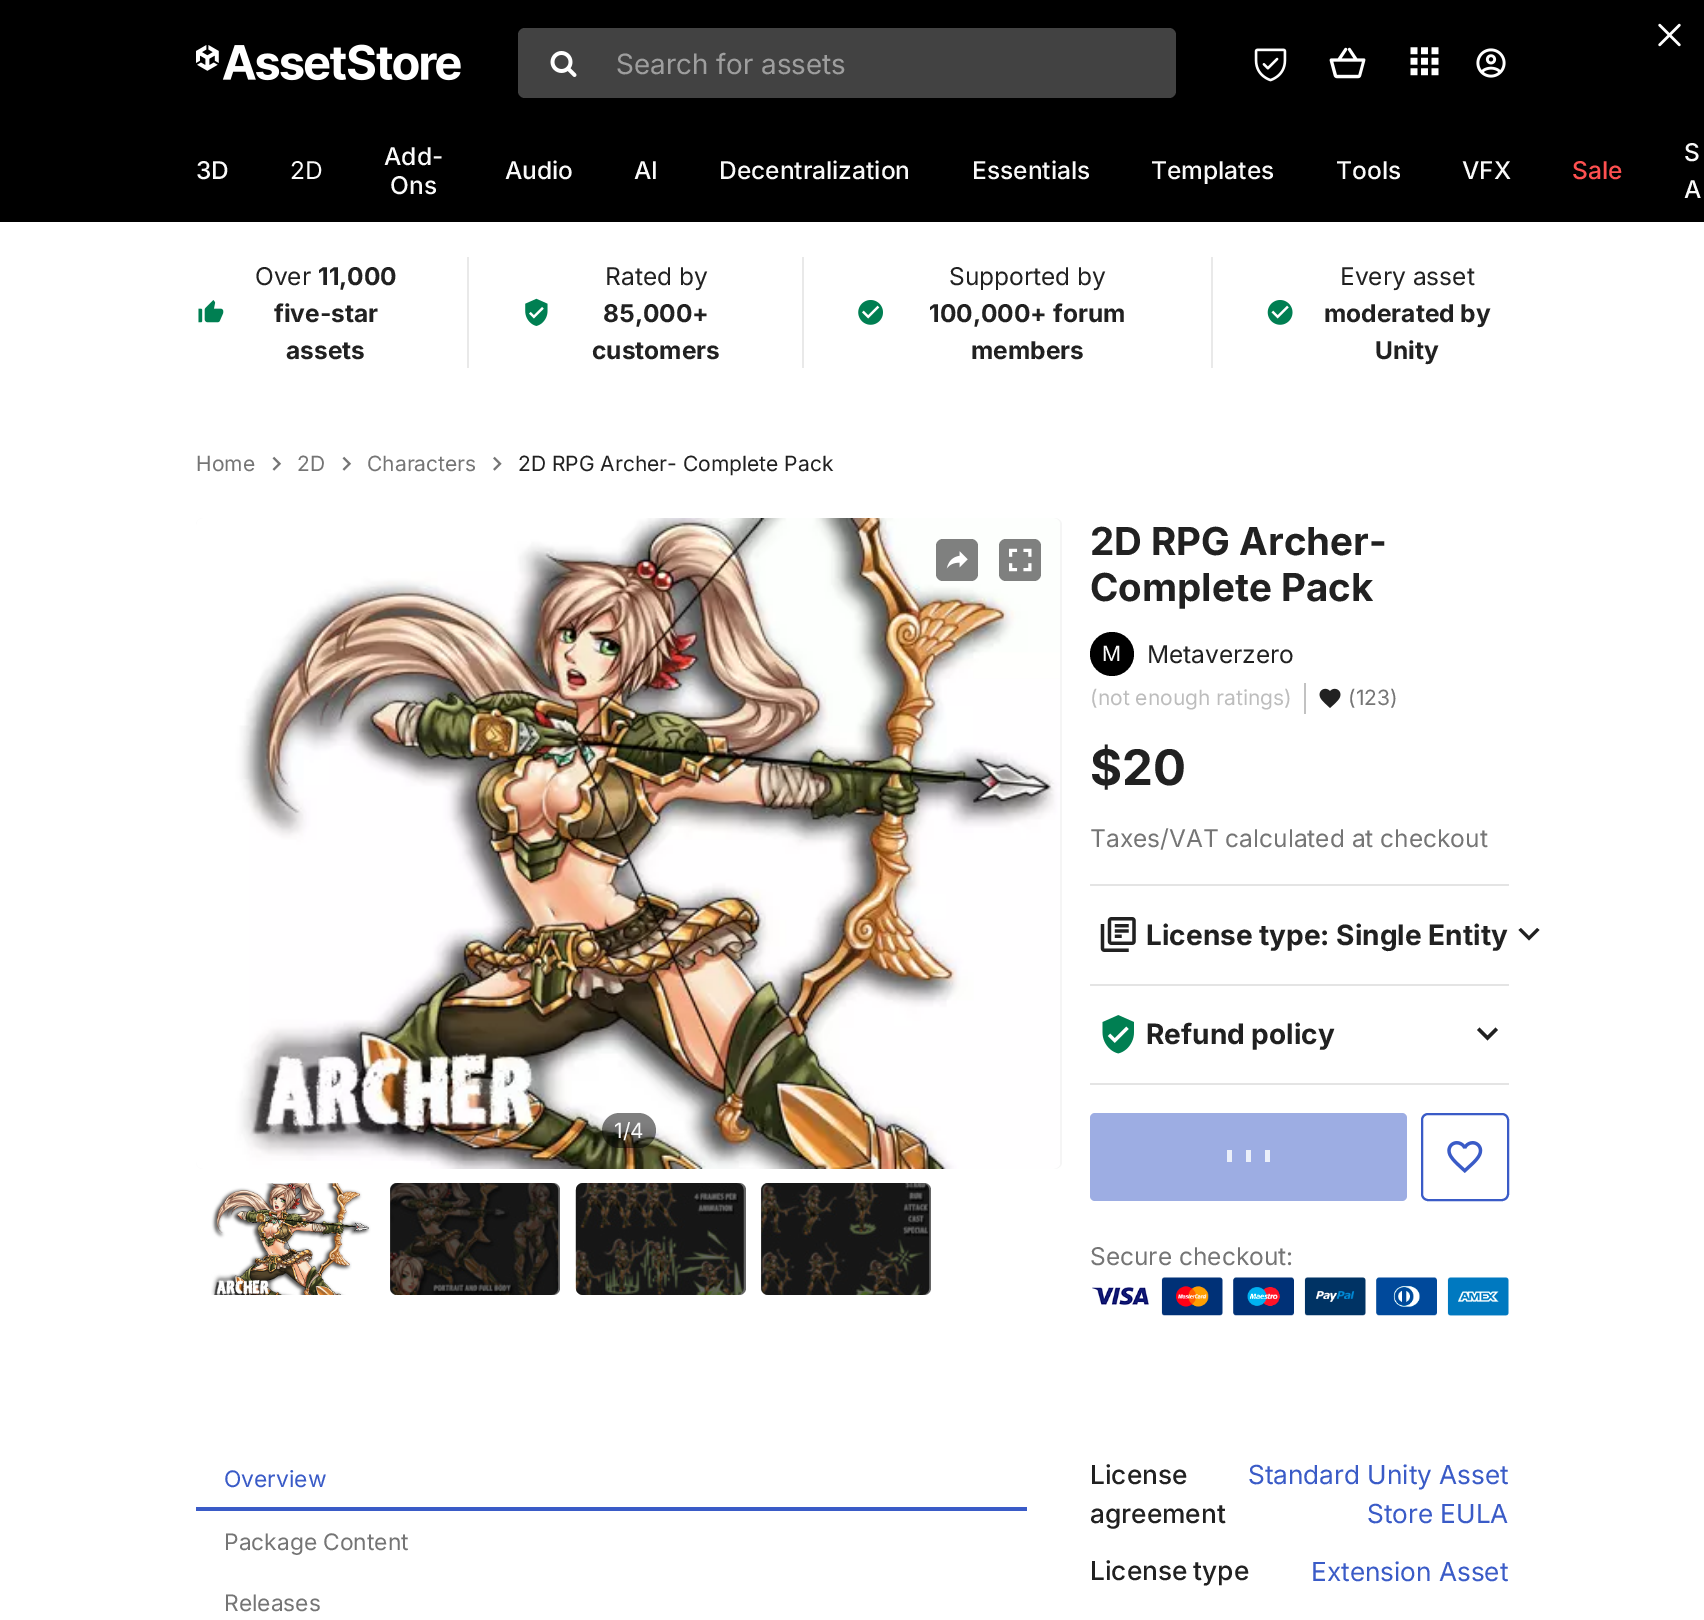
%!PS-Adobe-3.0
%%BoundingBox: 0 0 1704 1620
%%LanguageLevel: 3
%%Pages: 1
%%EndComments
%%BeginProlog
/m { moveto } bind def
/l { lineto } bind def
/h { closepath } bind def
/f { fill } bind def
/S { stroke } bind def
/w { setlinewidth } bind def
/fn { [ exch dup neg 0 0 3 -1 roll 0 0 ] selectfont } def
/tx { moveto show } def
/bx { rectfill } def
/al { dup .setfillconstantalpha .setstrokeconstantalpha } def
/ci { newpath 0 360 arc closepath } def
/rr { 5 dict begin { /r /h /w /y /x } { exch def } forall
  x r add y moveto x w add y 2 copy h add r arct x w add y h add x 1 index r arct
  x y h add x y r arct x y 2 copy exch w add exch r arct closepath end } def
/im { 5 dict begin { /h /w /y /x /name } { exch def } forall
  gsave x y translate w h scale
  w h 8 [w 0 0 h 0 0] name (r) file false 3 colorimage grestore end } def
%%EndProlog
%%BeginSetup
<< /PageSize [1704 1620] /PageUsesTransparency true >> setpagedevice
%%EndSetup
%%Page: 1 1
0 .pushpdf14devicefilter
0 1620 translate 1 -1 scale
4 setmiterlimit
1 setgray
0 0 1704 1620 bx
0 setgray
0 0 1704 222 bx
(image0.raw) 1658 23 23 24 im
(image1.raw) 196 44 265 37 im
0.259 setgray
518 28 658 70 7 rr f
(image2.raw) 550 51 27 26 im
/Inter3-Regular 28 fn
0.62 setgray
(Search for assets) 616 74 tx
(image3.raw) 1254 48 33 34 im
(image4.raw) 1329 47 37 32 im
(image5.raw) 1410 47 29 29 im
(image6.raw) 1476 48 30 30 im
/Inter-Medium 24.5 fn
0.98 setgray
(3D) 196 179 tx
/Inter-Regular 24.5 fn
(2D) 290 179 tx
/Inter-Medium 24.5 fn
(Add-) 384 165 tx
(Ons) 390 194 tx
(Audio) 505 179 tx
(AI) 634 179 tx
(Decentralization) 719 179 tx
(Essentials) 972 179 tx
(Templates) 1151 179 tx
(Tools) 1336 179 tx
(VFX) 1462 179 tx
1 0.314 0.314 setrgbcolor
(Sale) 1572 179 tx
0.98 setgray
(S) 1684 161 tx
(A) 1684 198 tx
(image7.raw) 198 300 26 23 im
/Inter-Regular 24.5 fn
0.129 setgray
(Over) 255 285 tx
/Inter-Bold 24.5 fn
(11,000) 318 285 tx
(five-star) 274 322 tx
(assets) 286 359 tx
0.914 setgray
802 257 2 111 bx
467 257 2 111 bx
(image8.raw) 525 298 23 28 im
/Inter-Regular 24.5 fn
0.129 setgray
(Rated by) 605 285 tx
/Inter-Bold 24.5 fn
(85,000+) 603 322 tx
(customers) 592 359 tx
0.914 setgray
1211 257 2 111 bx
(image9.raw) 858 300 25 25 im
/Inter-Regular 24.5 fn
0.129 setgray
(Supported by) 949 285 tx
/Inter-Bold 24.5 fn
(100,000+ forum) 929 322 tx
(members) 971 359 tx
(image10.raw) 1267 300 26 25 im
/Inter-Regular 24.5 fn
(Every asset) 1340 285 tx
/Inter-Bold 24.5 fn
(moderated by) 1324 322 tx
(Unity) 1375 359 tx
/Inter-Regular 21 fn
0.459 setgray
(Home) 196 471 tx
(image11.raw) 272 456 10 15 im
(2D) 297 471 tx
(image11.raw) 342 456 10 15 im
(Characters) 367 471 tx
(image12.raw) 493 456 9 15 im
0.129 setgray
(2D RPG Archer- Complete Pack) 518 471 tx
0.961 setgray
196 518 866 651 7 rr f
(image15.raw) 196 518 864 651 im
0.498 0.502 0.498 setrgbcolor
936 539 42 42 7 rr f
(image13.raw) 946 551 22 18 im
999 539 42 42 7 rr f
(image14.raw) 1009 548 23 24 im
0.5 al
0 setgray
602 1113 54 35 17.5 rr f
1 al
0.98 setgray
(1/4) 614 1138 tx
(image16.raw) 211 1181 160 116 im
1 setgray
2 w
202 1182 170 114 6 rr S
(image17.raw) 390 1183 169 112 im
0.6 al
0 setgray
390 1183 170 112 7 rr f
1 al
(image18.raw) 575 1183 169 112 im
0.6 al
576 1183 170 112 7 rr f
1 al
(image19.raw) 761 1183 169 112 im
0.6 al
761 1183 170 112 7 rr f
1 al
0.227 0.357 0.78 setrgbcolor
196 1507 831 4 bx
/Inter-Regular 22.75 fn
(Overview) 224 1487 tx
0.459 setgray
(Package Content) 224 1550 tx
(Releases) 224 1611 tx
/Inter-Bold 38.5 fn
0.129 setgray
(2D RPG Archer-) 1090 555 tx
(Complete Pack) 1090 601 tx
0 setgray
1112 654 22 ci f
/Inter-Regular 21 fn
0.98 setgray
(M) 1102 661 tx
/Inter-Regular 24.5 fn
0.129 setgray
(Metaverzero) 1147 663 tx
/Inter-Regular 21 fn
0.741 setgray
(\(not enough ratings\)) 1090 705 tx
0.761 setgray
1304 683 2 31 bx
(image20.raw) 1319 688 22 20 im
0.459 setgray
(\(123\)) 1348 705 tx
/Inter-Bold 49 fn
0.129 setgray
($20) 1090 785 tx
/Inter-Regular 24.5 fn
0.459 setgray
(Taxes/VAT calculated at checkout) 1090 847 tx
0.894 setgray
1090 884 419 2 bx
(image21.raw) 1100 917 36 35 im
/Inter-Bold 28 fn
0.129 setgray
(License type: Single Entity) 1146 945 tx
1529 940.5 m 1539.5 930 l 1537 928 l 1529 936 l 1521 928 l 1518.5 930 l h f
0.894 setgray
1090 984 419 2 bx
1090 1083 419 2 bx
(image22.raw) 1102 1015 32 39 im
0.129 setgray
(Refund policy) 1146 1044 tx
1487.5 1040.5 m 1498 1030 l 1495.5 1027.5 l 1487.5 1035.5 l 1479.5 1027.5 l 1477 1030 l h f
0.616 0.678 0.89 setrgbcolor
1090 1113 317 88 5 rr f
0.922 0.937 0.976 setrgbcolor
1227 1150 5 12 bx
1246 1150 5 12 bx
1265 1150 5 12 bx
0.227 0.357 0.78 setrgbcolor
1422 1114 86 86 6 rr S
(image23.raw) 1447 1141 36 32 im
/Inter-Regular 24.5 fn
0.459 setgray
(Secure checkout:) 1090 1265 tx
(image24.raw) 1092 1277 417 39 im
/Inter-Medium 26.25 fn
0.129 setgray
(License) 1090 1484 tx
(agreement) 1090 1523 tx
/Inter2-Regular 26.25 fn
0.227 0.357 0.78 setrgbcolor
(Standard Unity Asset) 1248 1484 tx
(Store EULA) 1367 1523 tx
/Inter-Medium 26.25 fn
0.129 setgray
1090 1580 m -1 0 32 (License type) widthshow
/Inter2-Regular 26.25 fn
0.227 0.357 0.78 setrgbcolor
(Extension Asset) 1311 1581 tx
.poppdf14devicefilter showpage
%%EOF
